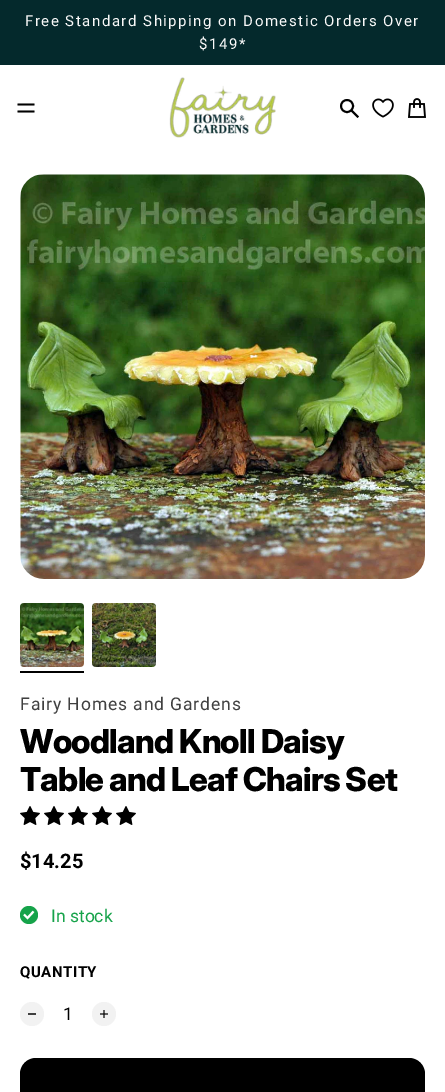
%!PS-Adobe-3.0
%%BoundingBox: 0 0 445 1092
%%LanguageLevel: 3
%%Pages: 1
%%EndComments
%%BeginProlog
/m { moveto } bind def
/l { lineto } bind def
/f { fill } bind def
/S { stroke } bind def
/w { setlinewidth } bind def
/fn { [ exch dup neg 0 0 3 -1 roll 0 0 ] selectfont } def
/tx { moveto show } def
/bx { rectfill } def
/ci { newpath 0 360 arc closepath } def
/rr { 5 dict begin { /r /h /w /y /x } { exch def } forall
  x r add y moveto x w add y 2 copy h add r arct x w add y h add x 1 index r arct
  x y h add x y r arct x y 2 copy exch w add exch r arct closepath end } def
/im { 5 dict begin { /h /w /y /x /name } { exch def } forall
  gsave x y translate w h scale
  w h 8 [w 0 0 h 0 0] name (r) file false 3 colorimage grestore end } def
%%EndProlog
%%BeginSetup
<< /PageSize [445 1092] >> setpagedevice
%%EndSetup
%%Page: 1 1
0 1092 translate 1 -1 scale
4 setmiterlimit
1 setgray
0 0 445 1092 bx
0.016 0.161 0.173 setrgbcolor
0 0 445 65 bx
/Roboto-Regular 15 fn
0.976 setgray
25 26 m 1.5 0 (Free Standard Shipping on Domestic Orders Over) ashow
199 49 m 1.5 0 ($149*) ashow
0 setgray
1.8 w
2 setlinecap
33.5 111.5 m 18.5 111.5 l 33.5 104.5 m 18.5 104.5 l S
(image0.raw) 169 77 107 61 im
1.9 w
357.5 116.5 m 351.5 110.5 l S
0 setlinecap
347 106 6 ci S
(image1.raw) 372 98 22 20 im
(image2.raw) 408 98 18 20 im
(image3.raw) 20 174 405 405 im
(image4.raw) 20 603 64 64 im
20 671 64 2 bx
(image5.raw) 92 603 64 64 im
/Roboto-Regular 17.5 fn
0.251 setgray
20 710 m 0.9 0 (Fairy Homes and Gardens) ashow
/Inter-ExtraBold 32.9 fn
0 setgray
20 753 m -0.8 0 (Woodland Knoll Daisy) ashow
20 791 m -0.8 0 (Table and Leaf Chairs Set) ashow
(image6.raw) 20 806 20 19 im
(image6.raw) 44 806 20 19 im
(image6.raw) 68 806 20 19 im
(image6.raw) 92 806 20 19 im
(image6.raw) 116 806 20 19 im
/Roboto-Bold 20 fn
($14.25) 20 868 tx
0.086 0.639 0.29 setrgbcolor
29 915 9 ci f
1 setgray
2 w
24 914.5 m 27.5 918 l 33.5 911.5 l S
/Roboto-Regular 17.5 fn
0.086 0.639 0.29 setrgbcolor
(In stock) 51 922 tx
/Roboto-Bold 15 fn
0 setgray
20 977 m 0.5 0 (QUANTITY) ashow
0.949 setgray
32 1014 12 ci f
0 setgray
1.2 w
28 1014 m 36 1014 l S
/Roboto-Regular 17.5 fn
(1) 63 1020 tx
0.949 setgray
104 1014 12 ci f
(image7.raw) 100 1010 8 8 im
0 setgray
20 1058 405 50 16 rr f
showpage
%%EOF
